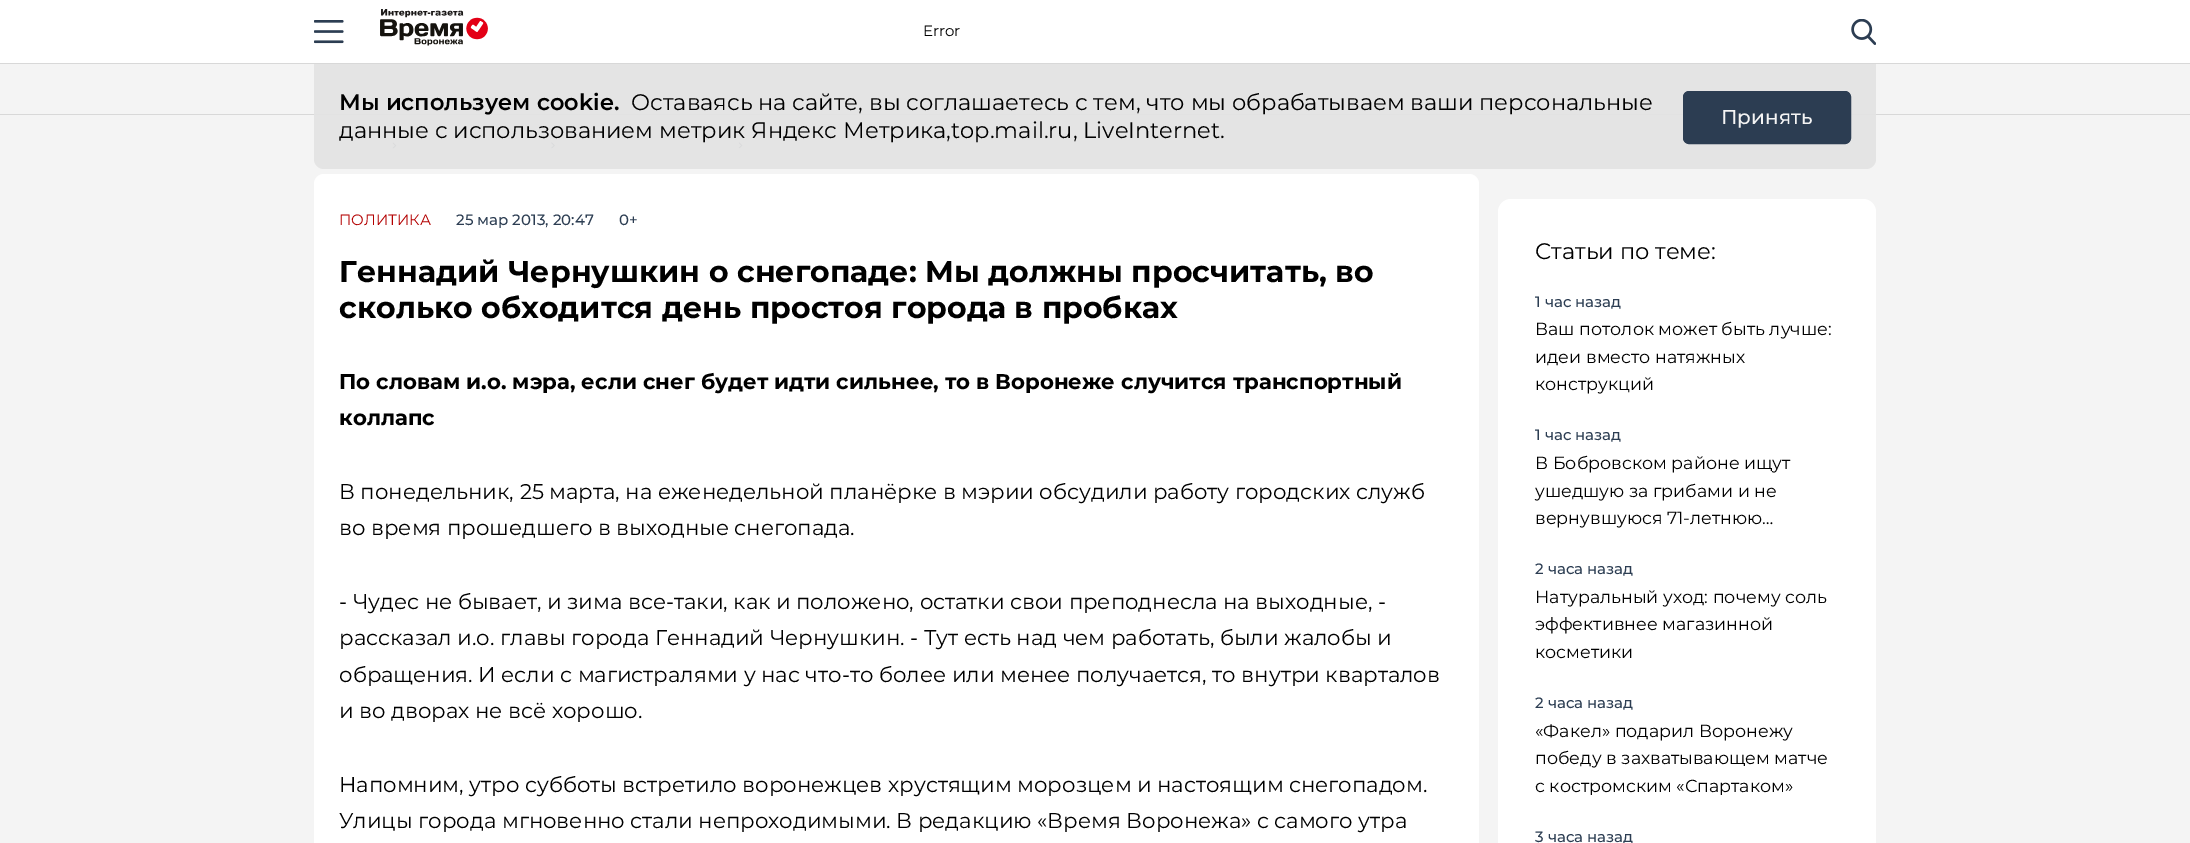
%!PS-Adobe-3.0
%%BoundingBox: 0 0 2190 843
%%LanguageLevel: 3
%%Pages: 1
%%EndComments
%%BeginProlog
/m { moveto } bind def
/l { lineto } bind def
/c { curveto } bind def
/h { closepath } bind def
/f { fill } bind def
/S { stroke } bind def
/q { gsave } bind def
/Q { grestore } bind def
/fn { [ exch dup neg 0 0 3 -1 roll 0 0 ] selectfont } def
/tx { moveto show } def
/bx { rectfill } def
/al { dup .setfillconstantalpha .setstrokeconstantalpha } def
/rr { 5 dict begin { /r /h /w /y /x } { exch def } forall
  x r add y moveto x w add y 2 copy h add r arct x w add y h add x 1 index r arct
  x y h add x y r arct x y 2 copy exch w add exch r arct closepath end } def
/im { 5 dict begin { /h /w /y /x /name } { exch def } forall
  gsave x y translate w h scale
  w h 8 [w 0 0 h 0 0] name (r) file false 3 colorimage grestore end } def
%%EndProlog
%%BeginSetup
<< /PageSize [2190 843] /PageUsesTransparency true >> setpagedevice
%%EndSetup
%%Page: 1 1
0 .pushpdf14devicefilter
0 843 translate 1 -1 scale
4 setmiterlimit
1 setgray
0 0 2190 843 bx
0.847 setgray
0 63 2190 1 bx
(image0.raw) 314 20 30 24 im
(image1.raw) 380 9 108 37 im
/Montserrat-Regular 15 fn
0 setgray
(Error) 923 36 tx
(image2.raw) 1851 19 25 26 im
0.957 setgray
0 64 2190 779 bx
0.847 setgray
0 114 2190 1 bx
(image3.raw) 392 142 5 7 im
(image4.raw) 551 142 4 7 im
(image5.raw) 738 142 5 7 im
0.95 al
0.89 setgray
314 64 m 1876 64 l 1876 159 l 1876 164.5 1871.5 169 1866 169 c 324 169 l 318.5 169 314 164.5 314 159 c h f
/Montserrat-SemiBold 22.5 fn
1 al
0 setgray
(Мы используем cookie.) 339 110 tx
/Montserrat-Regular 22.5 fn
(Оставаясь на сайте, вы соглашаетесь с тем, что мы обрабатываем ваши персональные) 631 110 tx
(данные с использованием метрик Яндекс Метрика,top.mail.ru, LiveInternet.) 339 138 tx
0.173 0.239 0.322 setrgbcolor
1683.5 91.5 167 52 5.5 rr q f Q
S
/Montserrat-Medium 20 fn
0.957 setgray
(Принять) 1721 124 tx
1 setgray
314 174 1165 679 10 rr f
/Montserrat-Regular 15 fn
0.702 0 0 setrgbcolor
(ПОЛИТИКА) 339 225 tx
/Montserrat-Medium 15 fn
0.173 0.239 0.322 setrgbcolor
(25 мар 2013, 20:47) 456 225 tx
(0+) 619 225 tx
/Montserrat-Bold 30 fn
0 setgray
(Геннадий Чернушкин о снегопаде: Мы должны просчитать, во) 339 282 tx
(сколько обходится день простоя города в пробках) 339 318 tx
/Montserrat-Bold 21.25 fn
(По словам и.о. мэра, если снег будет идти сильнее, то в Воронеже случится транспортный) 339 389 tx
(коллапс) 339 425 tx
/Montserrat-Regular 21.25 fn
(В понедельник, 25 марта, на еженедельной планёрке в мэрии обсудили работу городских служб) 339 499 tx
(во время прошедшего в выходные снегопада.) 339 535 tx
(- Чудес не бывает, и зима все-таки, как и положено, остатки свои преподнесла на выходные, -) 339 609 tx
(рассказал и.о. главы города Геннадий Чернушкин. - Тут есть над чем работать, были жалобы и) 339 645 tx
(обращения. И если с магистралями у нас что-то более или менее получается, то внутри кварталов) 339 682 tx
(и во дворах не всё хорошо.) 339 718 tx
(Напомним, утро субботы встретило воронежцев хрустящим морозцем и настоящим снегопадом.) 339 792 tx
(Улицы города мгновенно стали непроходимыми. В редакцию «Время Воронежа» с самого утра) 339 828 tx
1 setgray
1498 199 378 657 13 rr f
/Montserrat-Regular 22.5 fn
0 setgray
(Статьи по теме:) 1535 259 tx
/Montserrat-Medium 15 fn
0.173 0.239 0.322 setrgbcolor
(1 час назад) 1535 307 tx
/Montserrat-Regular 17.5 fn
0 setgray
(Ваш потолок может быть лучше:) 1535 335 tx
(идеи вместо натяжных) 1535 363 tx
(конструкций) 1535 390 tx
/Montserrat-Medium 15 fn
0.173 0.239 0.322 setrgbcolor
(1 час назад) 1535 440 tx
/Montserrat-Regular 17.5 fn
0 setgray
(В Бобровском районе ищут) 1535 469 tx
(ушедшую за грибами и не) 1535 497 tx
(вернувшуюся 71-летнюю…) 1535 524 tx
/Montserrat-Medium 15 fn
0.173 0.239 0.322 setrgbcolor
(2 часа назад) 1535 574 tx
/Montserrat-Regular 17.5 fn
0 setgray
(Натуральный уход: почему соль) 1535 603 tx
(эффективнее магазинной) 1535 630 tx
(косметики) 1535 658 tx
/Montserrat-Medium 15 fn
0.173 0.239 0.322 setrgbcolor
(2 часа назад) 1535 708 tx
/Montserrat-Regular 17.5 fn
0 setgray
(«Факел» подарил Воронежу) 1535 737 tx
(победу в захватывающем матче) 1535 764 tx
q
1535 716 304 79 rectclip
(с костромским «Спартаком») 1535 792 tx
Q
/Montserrat-Medium 15 fn
0.173 0.239 0.322 setrgbcolor
(3 часа назад) 1535 842 tx
.poppdf14devicefilter showpage
%%EOF
